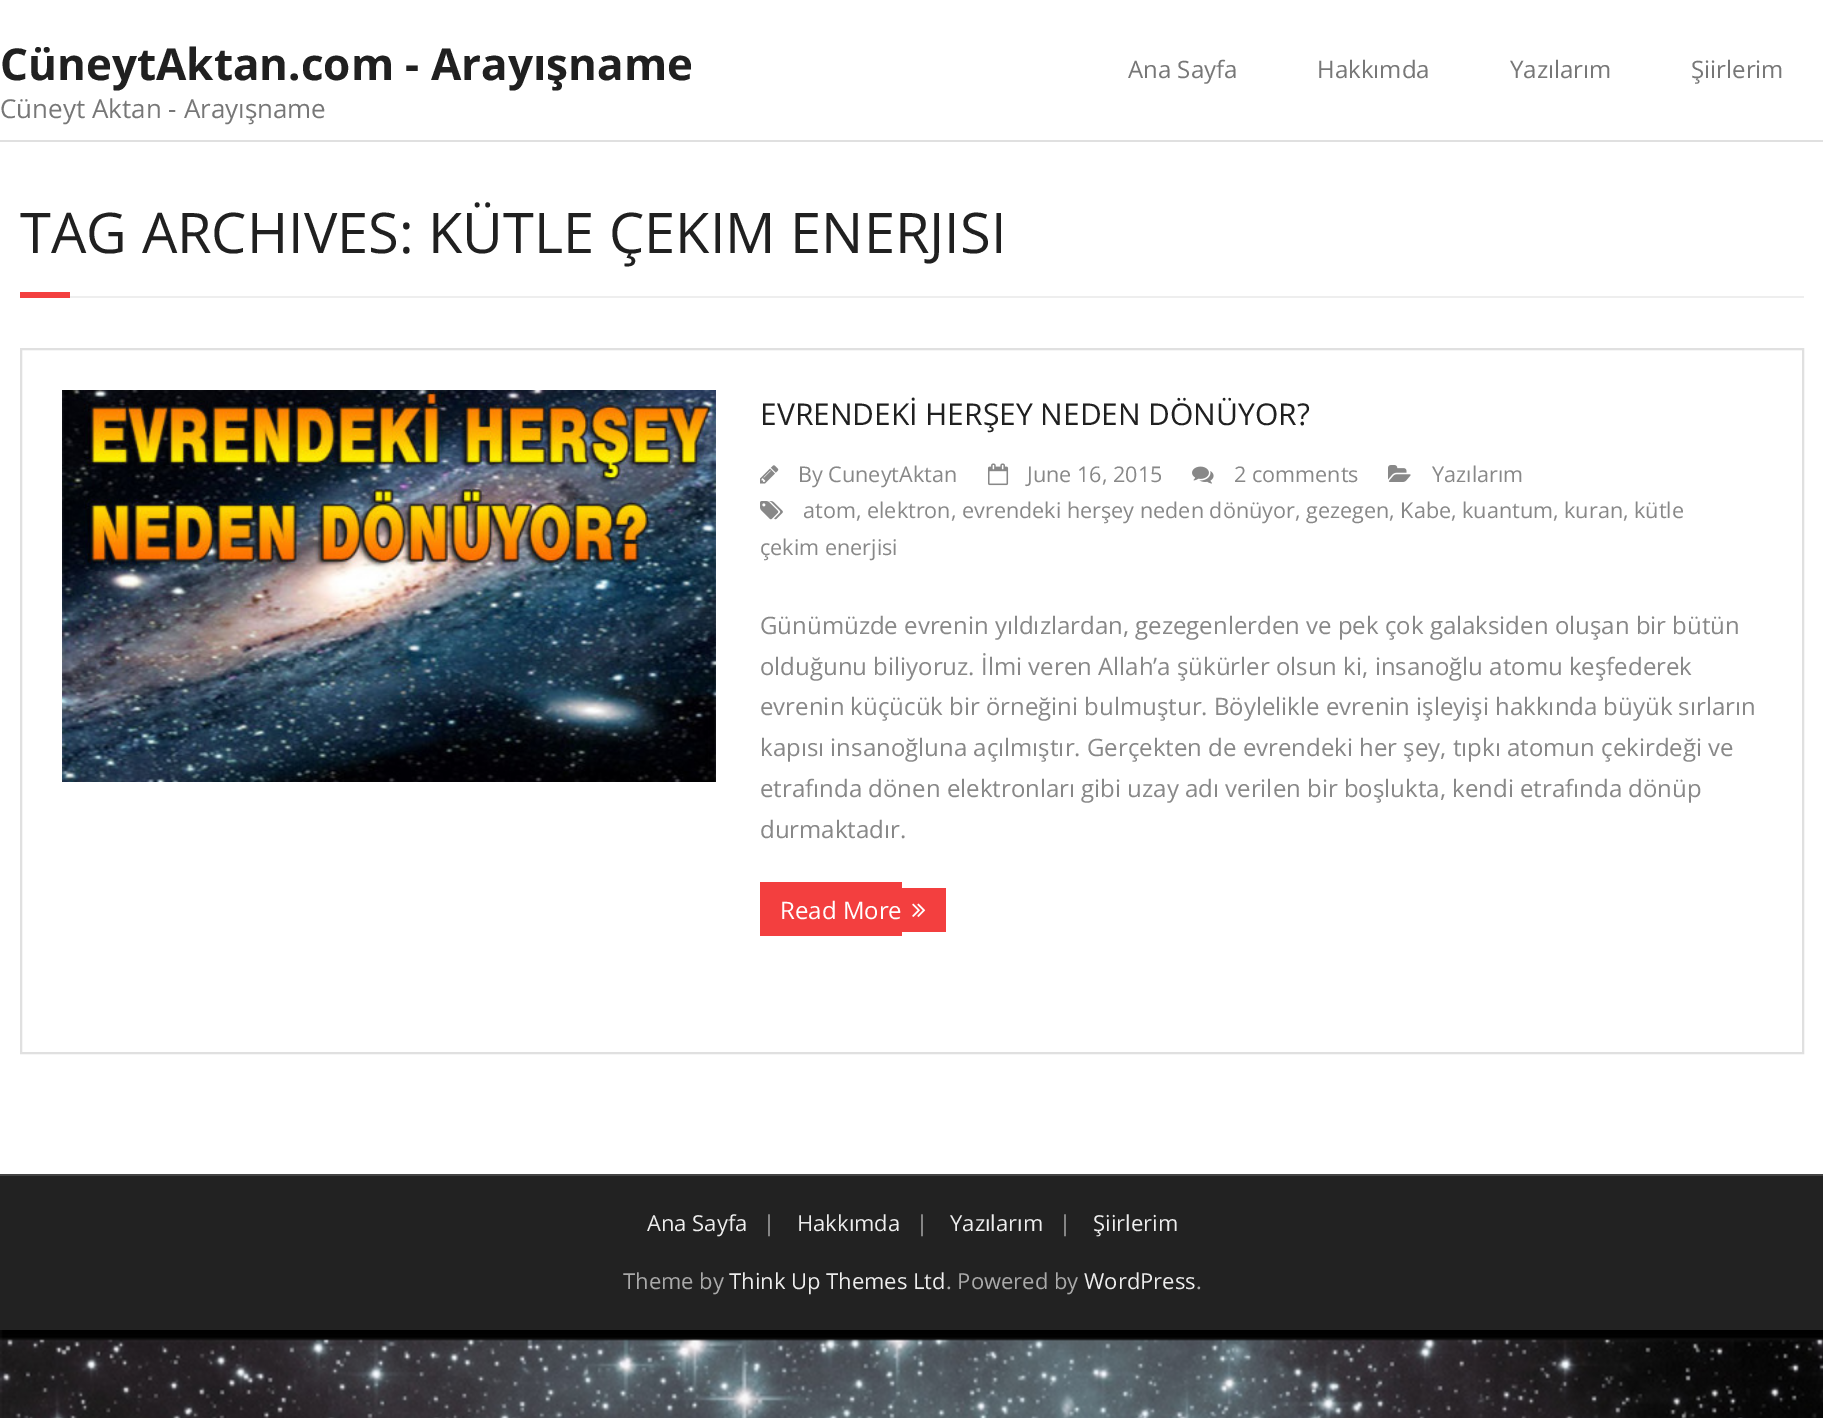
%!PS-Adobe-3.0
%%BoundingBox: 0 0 1823 1418
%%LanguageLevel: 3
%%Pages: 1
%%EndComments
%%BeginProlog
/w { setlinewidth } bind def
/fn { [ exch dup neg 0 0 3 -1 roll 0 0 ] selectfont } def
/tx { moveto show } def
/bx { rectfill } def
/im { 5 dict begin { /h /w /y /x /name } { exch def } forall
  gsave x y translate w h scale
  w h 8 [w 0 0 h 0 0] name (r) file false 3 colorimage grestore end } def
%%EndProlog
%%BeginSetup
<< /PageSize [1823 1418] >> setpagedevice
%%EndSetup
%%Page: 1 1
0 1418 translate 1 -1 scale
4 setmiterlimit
1 setgray
0 0 1823 1418 bx
(image0.raw) 0 1330 1823 88 im
0.878 setgray
0 140 1823 2 bx
/OpenSans-Bold 44 fn
0.125 setgray
(CüneytAktan.com - Arayışname) 0 80 tx
/OpenSans-Regular 26 fn
0.467 setgray
(Cüneyt Aktan - Arayışname) 0 118 tx
/OpenSans-Regular 24 fn
(Ana Sayfa) 1128 78 tx
(Hakkımda) 1317 78 tx
(Yazılarım) 1510 78 tx
(Şiirlerim) 1691 78 tx
/OpenSans-Regular 56 fn
0.125 setgray
(TAG ARCHIVES: KÜTLE ÇEKIM ENERJISI) 20 253 tx
0.953 0.247 0.247 setrgbcolor
20 292 50 6 bx
0.933 setgray
70 296 1734 2 bx
0.878 setgray
2 w
21 349 1782 704 rectstroke
(image1.raw) 62 390 654 392 im
/OpenSans-Regular 30 fn
0.125 setgray
(EVRENDEKİ HERŞEY NEDEN DÖNÜYOR?) 760 425 tx
(image2.raw) 760 465 19 19 im
/OpenSans-Regular 21.6 fn
0.533 setgray
(By CuneytAktan) 798 482 tx
(image3.raw) 988 463 21 23 im
(June 16, 2015) 1027 482 tx
(image4.raw) 1192 466 22 18 im
(2 comments) 1234 482 tx
(image5.raw) 1388 465 23 17 im
(Yazılarım) 1432 482 tx
(image6.raw) 760 501 23 19 im
(atom, elektron, evrendeki herşey neden dönüyor, gezegen, Kabe, kuantum, kuran, kütle) 803 518 tx
(çekim enerjisi) 760 555 tx
/OpenSans-Regular 24 fn
(Günümüzde evrenin yıldızlardan, gezegenlerden ve pek çok galaksiden oluşan bir bütün) 760 634 tx
(olduğunu biliyoruz. İlmi veren Allah’a şükürler olsun ki, insanoğlu atomu keşfederek) 760 675 tx
(evrenin küçücük bir örneğini bulmuştur. Böylelikle evrenin işleyişi hakkında büyük sırların) 760 715 tx
(kapısı insanoğluna açılmıştır. Gerçekten de evrendeki her şey, tıpkı atomun çekirdeği ve) 760 756 tx
(etrafında dönen elektronları gibi uzay adı verilen bir boşlukta, kendi etrafında dönüp) 760 797 tx
(durmaktadır.) 760 838 tx
0.953 0.247 0.247 setrgbcolor
760 882 142 54 bx
1 setgray
(Read More) 780 919 tx
0.953 0.247 0.247 setrgbcolor
902 888 44 44 bx
(image7.raw) 912 903 14 14 im
0.133 setgray
0 1176 1823 154 bx
0.267 setgray
0 1174 1823 2 bx
/OpenSans-Regular 22 fn
0.933 setgray
(Ana Sayfa) 647 1231 tx
0.667 setgray
(|) 763 1231 tx
0.933 setgray
(Hakkımda) 797 1231 tx
0.667 setgray
(|) 916 1231 tx
0.933 setgray
(Yazılarım) 950 1231 tx
0.667 setgray
(|) 1059 1231 tx
0.933 setgray
(Şiirlerim) 1093 1231 tx
0.667 setgray
(Theme by) 623 1289 tx
0.933 setgray
(Think Up Themes Ltd) 729 1289 tx
0.667 setgray
(. Powered by) 946 1289 tx
0.933 setgray
(WordPress) 1084 1289 tx
0.667 setgray
(.) 1196 1289 tx
showpage
%%EOF
